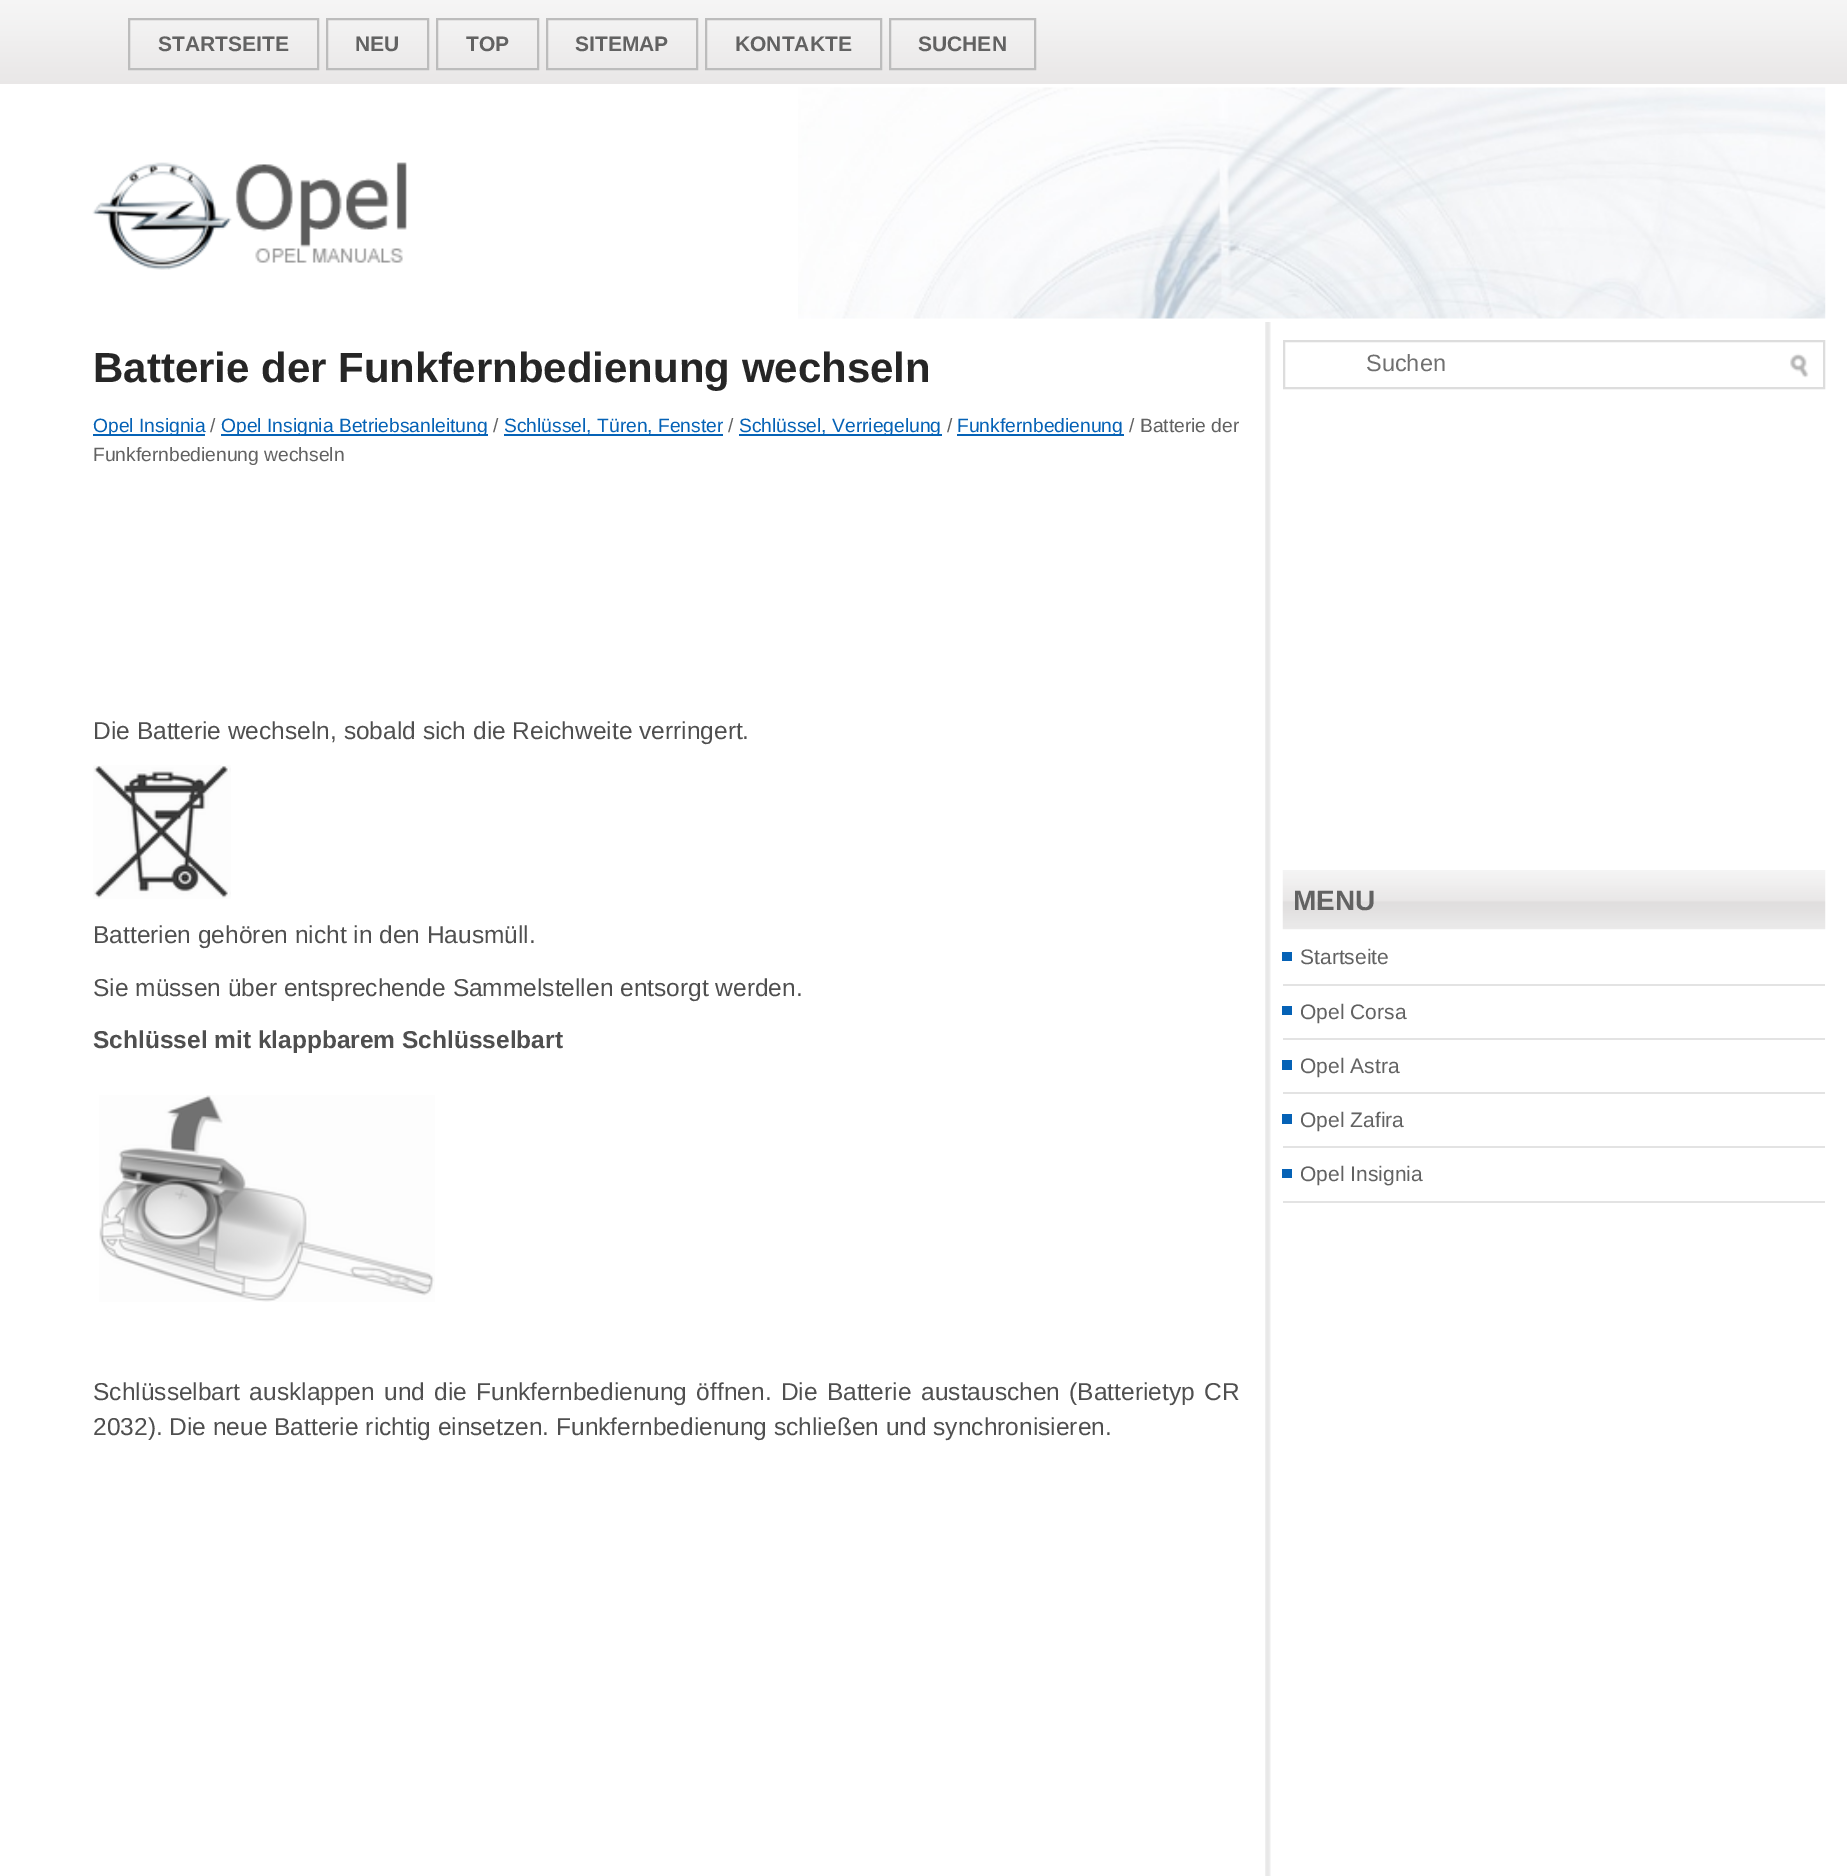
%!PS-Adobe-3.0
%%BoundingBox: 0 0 1847 1876
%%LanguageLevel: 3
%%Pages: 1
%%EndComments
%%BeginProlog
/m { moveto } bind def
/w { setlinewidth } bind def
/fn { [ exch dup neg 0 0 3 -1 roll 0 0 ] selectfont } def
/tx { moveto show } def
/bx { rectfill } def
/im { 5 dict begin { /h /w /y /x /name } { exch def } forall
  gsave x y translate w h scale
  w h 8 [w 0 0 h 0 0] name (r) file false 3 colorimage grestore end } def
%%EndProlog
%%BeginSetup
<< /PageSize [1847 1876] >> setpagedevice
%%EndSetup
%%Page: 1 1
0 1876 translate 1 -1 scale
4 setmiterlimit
1 setgray
0 0 1847 1876 bx
(image0.raw) 0 0 1847 84 im
(image1.raw) 798 87 1028 232 im
0.737 setgray
2 w
129 19 189 50 rectstroke
/LiberationSans-Bold 21 fn
0.384 setgray
(STARTSEITE) 158 51 tx
0.737 setgray
327 19 101 50 rectstroke
0.384 setgray
(NEU) 355 51 tx
0.737 setgray
437 19 101 50 rectstroke
0.384 setgray
(TOP) 466 51 tx
0.737 setgray
547 19 150 50 rectstroke
0.384 setgray
(SITEMAP) 575 51 tx
0.737 setgray
706 19 175 50 rectstroke
0.384 setgray
(KONTAKTE) 735 51 tx
0.737 setgray
890 19 145 50 rectstroke
0.384 setgray
(SUCHEN) 918 51 tx
(image2.raw) 92 162 315 108 im
(image3.raw) 1265 322 6 1554 im
/LiberationSans-Bold 42 fn
0.149 setgray
(Batterie der Funkfernbedienung wechseln) 93 382 tx
0.02 0.384 0.714 setrgbcolor
93 434 112 2 bx
/LiberationSans-Regular 19.25 fn
(Opel Insignia) 93 432 tx
0.384 setgray
(/) 210 432 tx
0.02 0.384 0.714 setrgbcolor
221 434 267 2 bx
(Opel Insignia Betriebsanleitung) 221 432 tx
0.384 setgray
(/) 493 432 tx
0.02 0.384 0.714 setrgbcolor
504 434 219 2 bx
(Schlüssel, Türen, Fenster) 504 432 tx
0.384 setgray
(/) 728 432 tx
0.02 0.384 0.714 setrgbcolor
739 434 203 2 bx
(Schlüssel, Verriegelung) 739 432 tx
0.384 setgray
(/) 947 432 tx
0.02 0.384 0.714 setrgbcolor
957 434 167 2 bx
(Funkfernbedienung) 957 432 tx
0.384 setgray
(/ Batterie der) 1129 432 tx
(Funkfernbedienung wechseln) 93 461 tx
/LiberationSans-Regular 24.5 fn
0.31 setgray
(Die Batterie wechseln, sobald sich die Reichweite verringert.) 93 739 tx
(image4.raw) 93 765 138 134 im
(Batterien gehören nicht in den Hausmüll.) 93 943 tx
(Sie müssen über entsprechende Sammelstellen entsorgt werden.) 93 996 tx
/LiberationSans-Bold 24.5 fn
(Schlüssel mit klappbarem Schlüsselbart) 93 1048 tx
(image5.raw) 99 1095 336 207 im
/LiberationSans-Regular 24.5 fn
93 1400 m 2.5 0 32 (Schlüsselbart ausklappen und die) widthshow
476 1400 m 2.5 0 32 (Funkfernbedienung öffnen. Die Batterie) widthshow
921 1400 m 2.5 0 32 (austauschen \(Batterietyp) widthshow
(CR) 1204 1400 tx
(2032\). Die neue Batterie richtig einsetzen. Funkfernbedienung schließen und synchronisieren.) 93 1435 tx
0.867 setgray
1284 341 540 47 rectstroke
/LiberationSans-Regular 23.5 fn
0.439 setgray
(Suchen) 1366 371 tx
(image6.raw) 1790 353 19 25 im
(image7.raw) 1282 870 544 60 im
/LiberationSans-Bold 28 fn
0.384 setgray
(MENU) 1293 910 tx
0.02 0.384 0.714 setrgbcolor
1282 952 10 9 bx
0.89 setgray
1283 984 542 2 bx
/LiberationSans-Regular 21 fn
0.384 setgray
(Startseite) 1300 964 tx
0.02 0.384 0.714 setrgbcolor
1282 1006 10 9 bx
0.89 setgray
1283 1038 542 2 bx
0.384 setgray
(Opel Corsa) 1300 1019 tx
0.02 0.384 0.714 setrgbcolor
1282 1060 10 10 bx
0.89 setgray
1283 1092 542 2 bx
0.384 setgray
(Opel Astra) 1300 1073 tx
0.02 0.384 0.714 setrgbcolor
1282 1114 10 10 bx
0.89 setgray
1283 1146 542 2 bx
0.384 setgray
(Opel Zafira) 1300 1127 tx
0.02 0.384 0.714 setrgbcolor
1282 1169 10 9 bx
0.89 setgray
1283 1201 542 2 bx
0.384 setgray
(Opel Insignia) 1300 1181 tx
showpage
%%EOF
